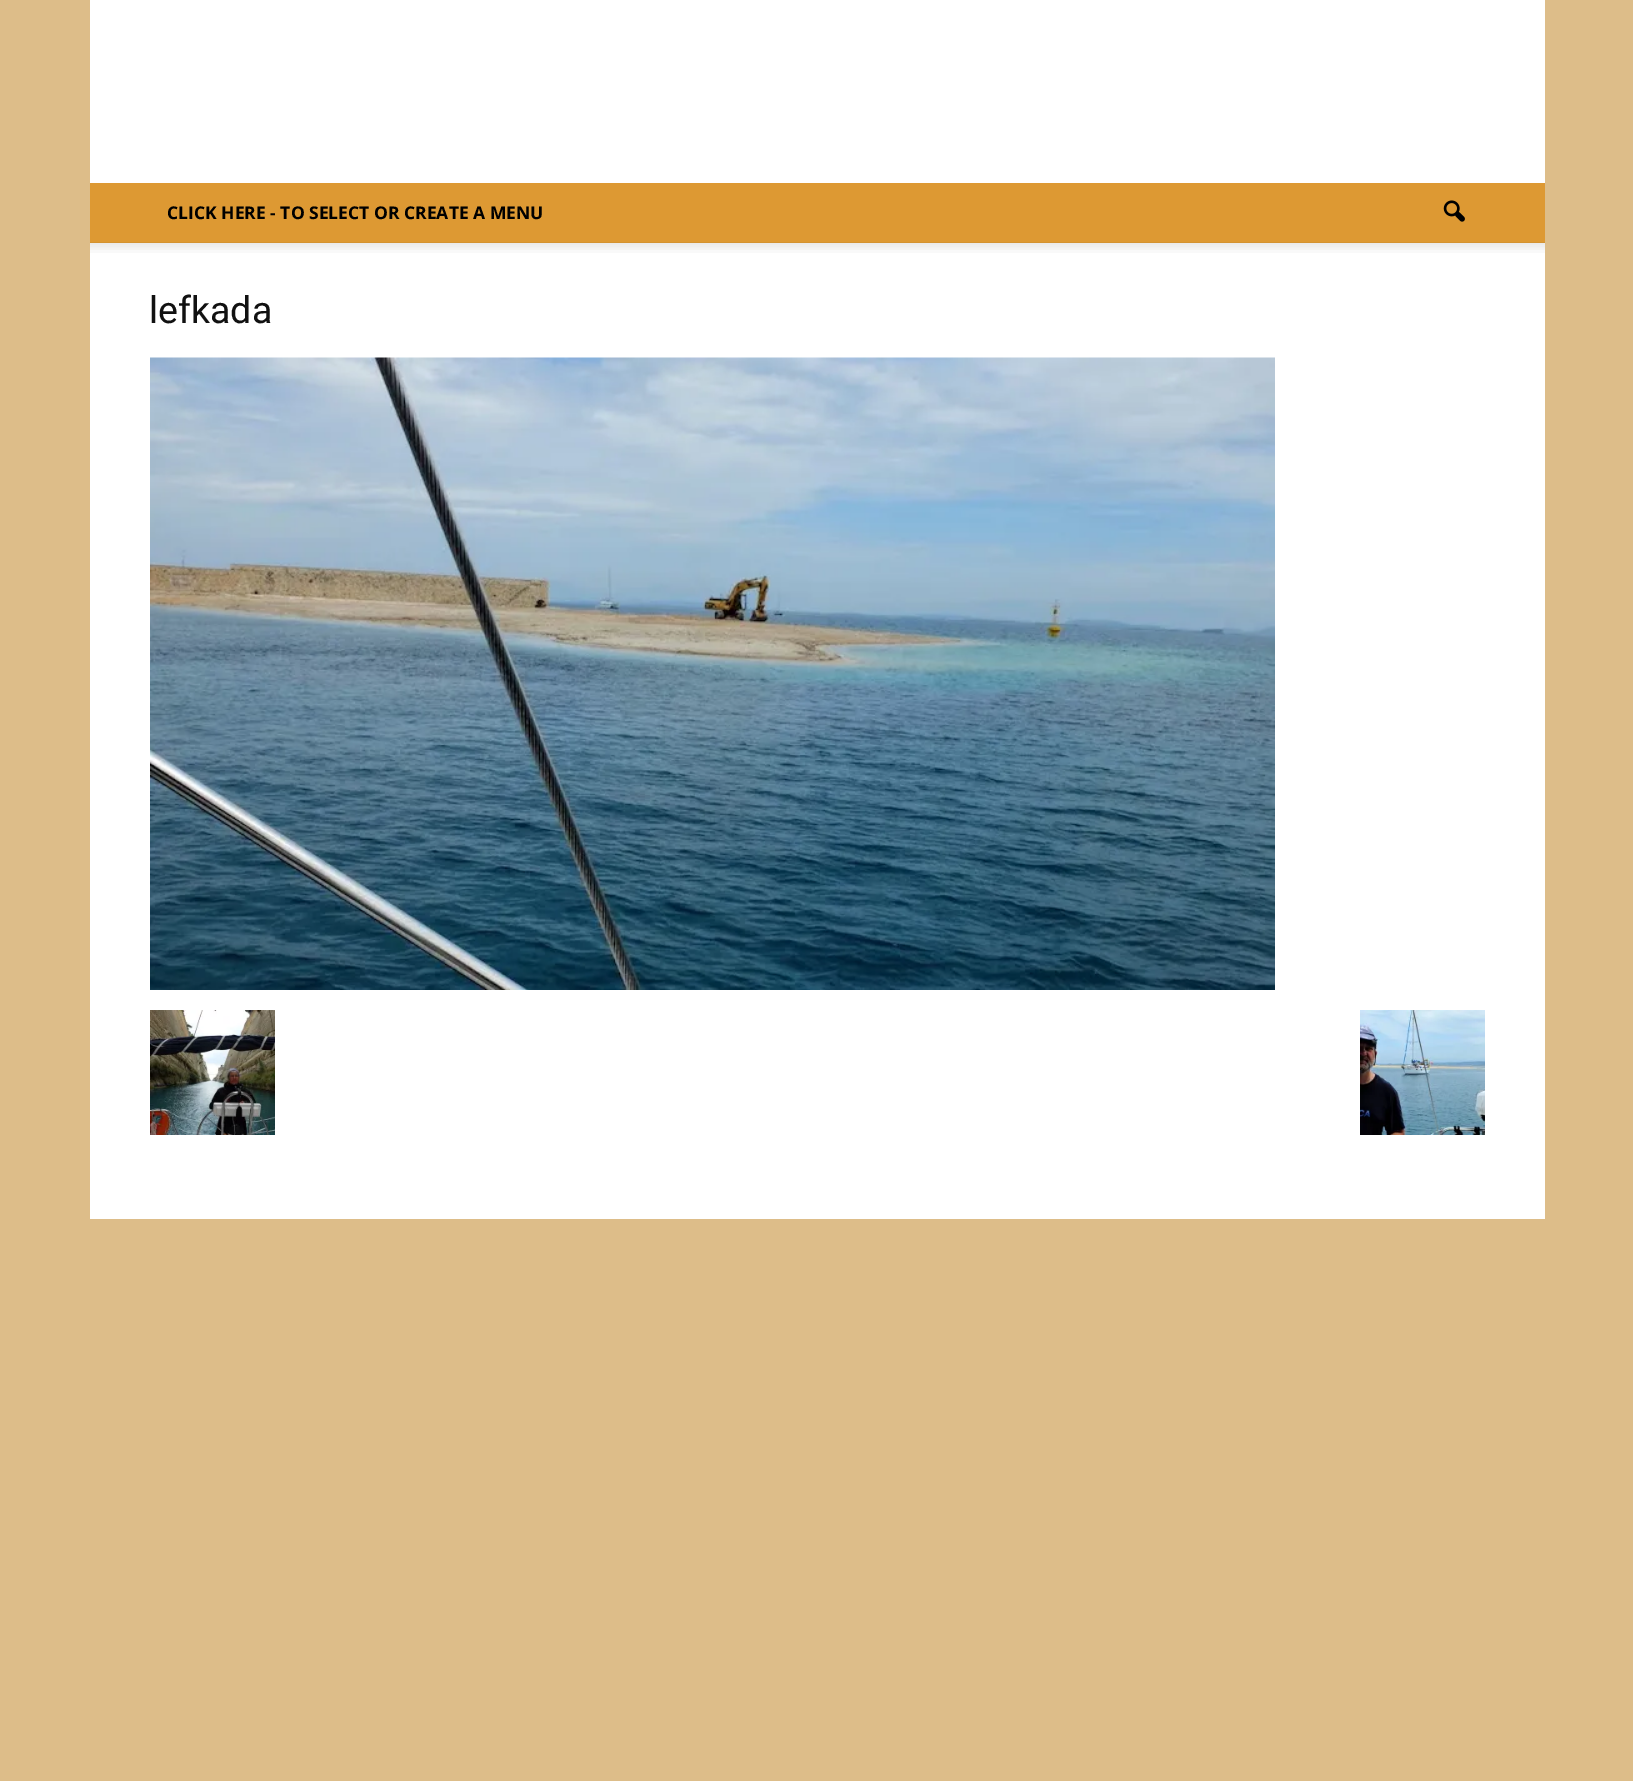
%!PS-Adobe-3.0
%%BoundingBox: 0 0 1633 1781
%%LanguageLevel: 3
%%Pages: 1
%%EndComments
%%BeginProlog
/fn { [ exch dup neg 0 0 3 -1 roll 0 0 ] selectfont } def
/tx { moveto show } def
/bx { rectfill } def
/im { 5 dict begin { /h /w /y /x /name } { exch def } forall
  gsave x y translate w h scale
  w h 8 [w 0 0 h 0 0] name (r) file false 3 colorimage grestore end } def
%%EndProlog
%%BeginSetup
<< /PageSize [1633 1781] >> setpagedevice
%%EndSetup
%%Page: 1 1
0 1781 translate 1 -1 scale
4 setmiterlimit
0.867 0.741 0.537 setrgbcolor
0 0 1633 1781 bx
1 setgray
90 0 1455 183 bx
0.867 0.6 0.2 setrgbcolor
90 183 1455 60 bx
/OpenSans-Bold 17.5 fn
0 setgray
(CLICK HERE - TO SELECT OR CREATE A MENU) 167 219 tx
(image0.raw) 1443 200 22 22 im
1 setgray
90 243 1455 976 bx
(image1.raw) 90 242 1455 11 im
/Roboto-Regular 37.5 fn
0.067 setgray
(lefkada) 149 323 tx
(image2.raw) 150 357 1125 633 im
(image3.raw) 150 1010 125 125 im
(image4.raw) 1360 1010 125 125 im
showpage
%%EOF
